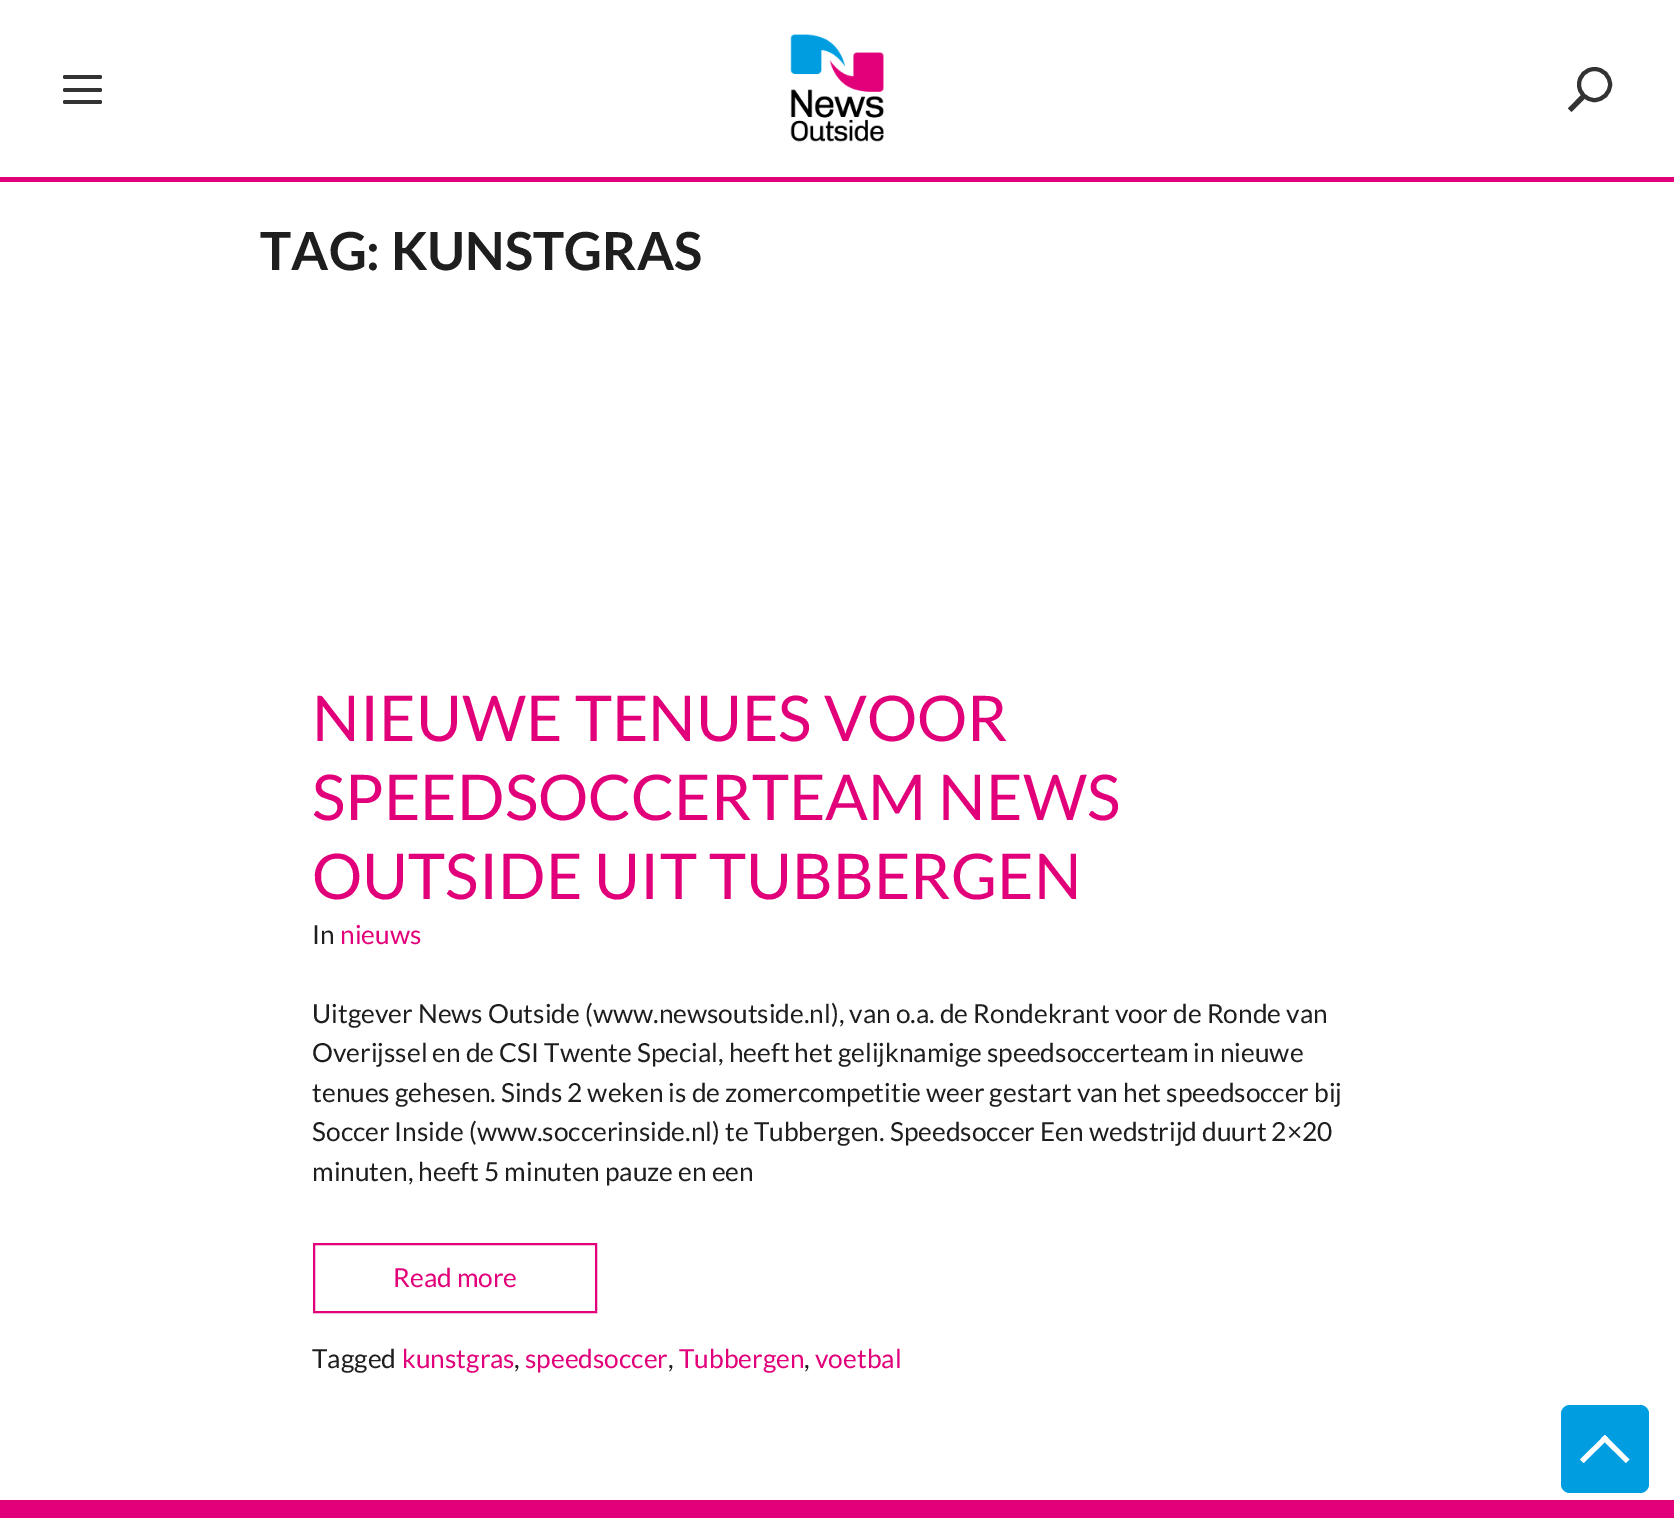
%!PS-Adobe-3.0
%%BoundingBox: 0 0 1674 1518
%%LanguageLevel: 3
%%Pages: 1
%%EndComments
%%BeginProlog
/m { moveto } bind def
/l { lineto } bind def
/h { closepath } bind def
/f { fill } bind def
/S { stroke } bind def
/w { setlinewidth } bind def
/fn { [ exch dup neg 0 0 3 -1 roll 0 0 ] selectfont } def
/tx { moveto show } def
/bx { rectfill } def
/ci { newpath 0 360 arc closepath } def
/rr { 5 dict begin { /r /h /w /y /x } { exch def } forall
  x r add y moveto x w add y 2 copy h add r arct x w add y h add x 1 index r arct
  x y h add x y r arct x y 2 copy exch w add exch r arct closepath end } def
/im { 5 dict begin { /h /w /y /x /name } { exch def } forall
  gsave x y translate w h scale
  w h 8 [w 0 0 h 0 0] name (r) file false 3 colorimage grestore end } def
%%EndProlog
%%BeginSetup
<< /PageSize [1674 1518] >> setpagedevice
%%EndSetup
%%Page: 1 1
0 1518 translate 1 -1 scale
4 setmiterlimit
1 setgray
0 0 1674 1518 bx
0.886 0 0.478 setrgbcolor
0 177 1674 5 bx
0.2 setgray
63 88 39 4 2 rr f
63 75 39 4 2 rr f
63 100 39 4 2 rr f
(image0.raw) 790 34 94 108 im
4 w
1594.5 84.5 15.5 ci S
1568 108.5 m 1582.5 93.5 l 1586.5 97 l 1571.5 112 l h f
/Lato-Bold 52.5 fn
0.118 setgray
(TAG: KUNSTGRAS) 260 270 tx
/Lato-Regular 63 fn
0.886 0 0.478 setrgbcolor
(NIEUWE TENUES VOOR) 312 741 tx
(SPEEDSOCCERTEAM NEWS) 312 820 tx
(OUTSIDE UIT TUBBERGEN) 312 899 tx
/Lato-Regular 26.25 fn
0.118 setgray
(In) 312 944 tx
0.886 0 0.478 setrgbcolor
(nieuws) 340 944 tx
0.118 setgray
(Uitgever News Outside \(www.newsoutside.nl\), van o.a. de Rondekrant voor de Ronde van) 312 1023 tx
(Overijssel en de CSI Twente Special, heeft het gelijknamige speedsoccerteam in nieuwe) 312 1062 tx
(tenues gehesen. Sinds 2 weken is de zomercompetitie weer gestart van het speedsoccer bij) 312 1102 tx
(Soccer Inside \(www.soccerinside.nl\) te Tubbergen. Speedsoccer Een wedstrijd duurt 2×20) 312 1141 tx
(minuten, heeft 5 minuten pauze en een) 312 1181 tx
0.886 0 0.478 setrgbcolor
2 w
314 1244 282 68 rectstroke
(Read more) 393 1287 tx
0.118 setgray
(Tagged) 312 1368 tx
0.886 0 0.478 setrgbcolor
(kunstgras) 402 1368 tx
0.118 setgray
(,) 514 1368 tx
0.886 0 0.478 setrgbcolor
(speedsoccer) 525 1368 tx
0.118 setgray
(,) 668 1368 tx
0.886 0 0.478 setrgbcolor
(Tubbergen) 679 1368 tx
0.118 setgray
(,) 804 1368 tx
0.886 0 0.478 setrgbcolor
(voetbal) 815 1368 tx
0 0.62 0.878 setrgbcolor
1561 1405 88 88 9 rr f
1 setgray
1605 1435 m 1629.5 1459.5 l 1626 1463 l 1601 1438.5 l h f
1605 1435 m 1608.5 1438.5 l 1583.5 1463 l 1580 1459.5 l h f
0.886 0 0.478 setrgbcolor
0 1500 1674 18 bx
showpage
%%EOF
